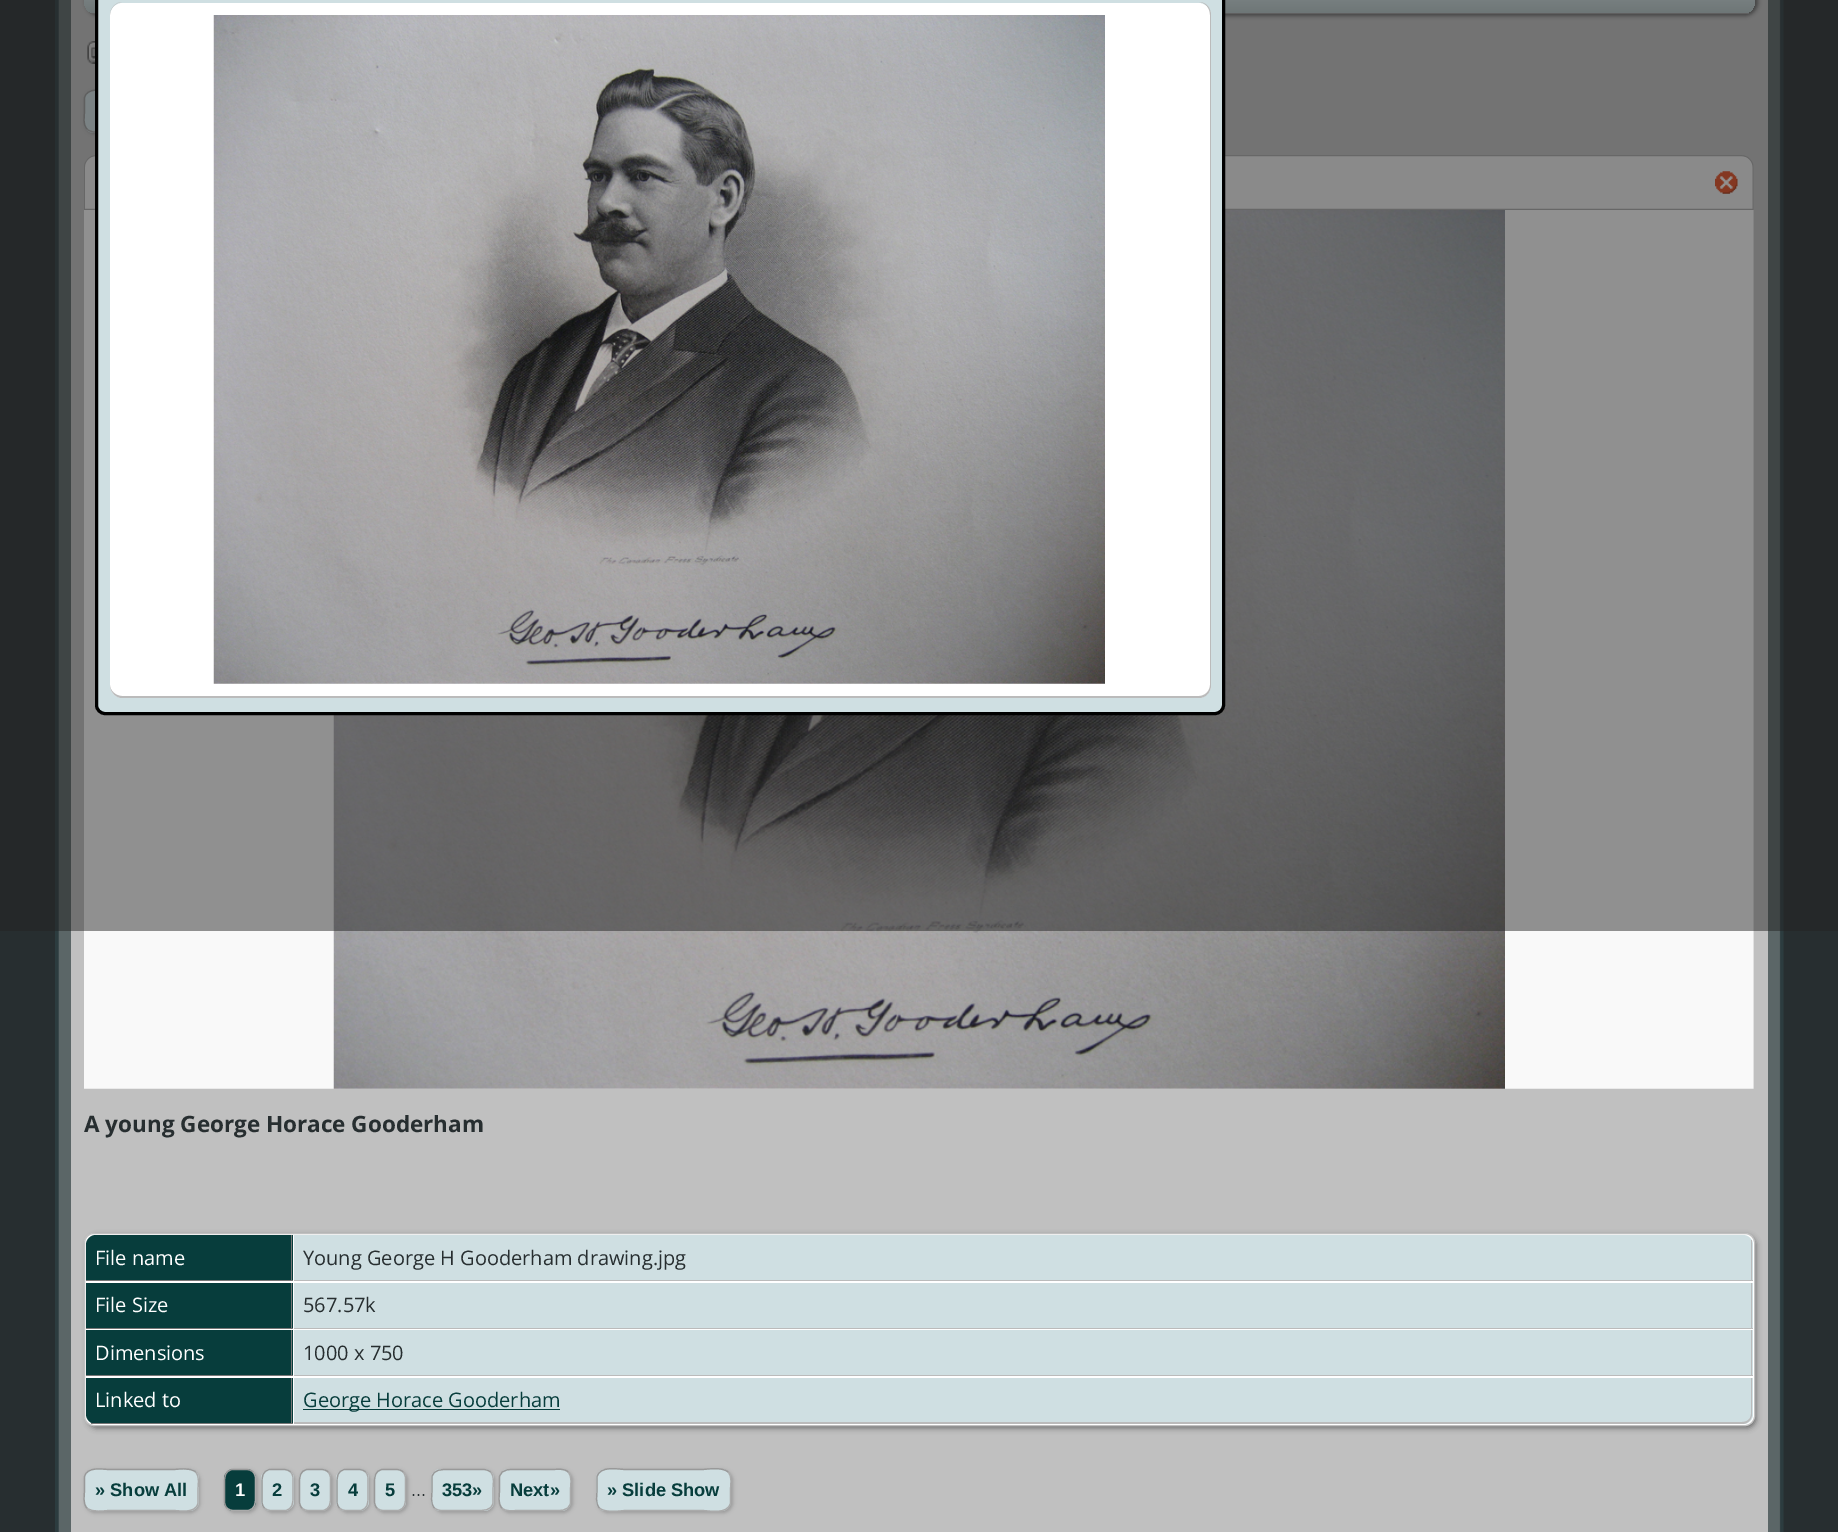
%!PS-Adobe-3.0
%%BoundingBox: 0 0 1838 1532
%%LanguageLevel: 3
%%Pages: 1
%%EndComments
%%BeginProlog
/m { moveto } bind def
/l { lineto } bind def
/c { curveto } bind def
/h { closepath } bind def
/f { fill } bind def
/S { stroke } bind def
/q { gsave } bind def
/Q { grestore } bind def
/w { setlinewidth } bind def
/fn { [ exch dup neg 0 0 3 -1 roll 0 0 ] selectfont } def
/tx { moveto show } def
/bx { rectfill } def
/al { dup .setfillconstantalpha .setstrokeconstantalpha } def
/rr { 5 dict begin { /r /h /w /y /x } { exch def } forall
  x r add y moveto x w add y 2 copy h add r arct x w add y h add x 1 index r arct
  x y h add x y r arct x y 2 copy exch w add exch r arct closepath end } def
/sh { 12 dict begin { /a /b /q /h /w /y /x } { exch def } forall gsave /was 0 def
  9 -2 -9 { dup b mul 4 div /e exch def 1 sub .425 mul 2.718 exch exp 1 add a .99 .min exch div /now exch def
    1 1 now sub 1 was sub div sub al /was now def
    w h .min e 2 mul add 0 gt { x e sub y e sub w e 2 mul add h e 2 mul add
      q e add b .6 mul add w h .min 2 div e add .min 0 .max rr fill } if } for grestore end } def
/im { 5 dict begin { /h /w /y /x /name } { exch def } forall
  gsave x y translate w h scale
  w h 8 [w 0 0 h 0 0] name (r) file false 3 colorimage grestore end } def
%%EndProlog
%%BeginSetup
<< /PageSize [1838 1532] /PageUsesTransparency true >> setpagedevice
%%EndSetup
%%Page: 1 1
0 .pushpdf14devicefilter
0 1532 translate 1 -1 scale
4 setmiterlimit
0.153 0.18 0.188 setrgbcolor
0 0 1838 1532 bx
(image1.raw) 55 0 16 1532 im
0.753 setgray
71 0 1697 1532 bx
0.4 setgray
86 -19 1672 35 13 2 1 sh
q
84 -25 1671 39 13 rr clip newpath
q 97 -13 m 1742 -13 l 1749 -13 1755 -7 1755 0 c 1755 13 l 84 13 l 84 0 l 84 -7 90 -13 97 -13 c h clip newpath
<< /ShadingType 2 /ColorSpace /DeviceRGB /Coords [919 -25 919 13] /Extend [true true] /Function << /FunctionType 2 /Domain [0 1] /C0 [0.906 0.969 0.98] /C1 [0.718 0.78 0.784] /N 1 >> >> shfill Q
Q
0.6 setgray
90 13 1659 1 bx
(image2.raw) 87 41 8 23 im
85 91 115 43 10 2 1 sh
0.812 0.875 0.886 setrgbcolor
84 90 115 43 10 rr f
0.667 setgray
1.2 w
195.5 93.5 m 200 98 198 105.5 198 111 c 198 124.5 l 196 135.5 180 132 173 132 c 109.5 132 l 105 132 92.5 134.5 87 129 c S
0.6 setgray
87 129 m 82.5 124.5 84.5 117 84.5 111 c 84.5 98 l 86.5 87 102.5 90.5 109.5 90.5 c 173 90.5 l 177.5 90.5 190 88 195.5 93.5 c S
(image3.raw) 84 155 1670 934 im
(image4.raw) 1768 0 16 1532 im
0.49 al
0.133 setgray
0 0 1838 931 bx
1 al
0.812 0.875 0.886 setrgbcolor
96.5 -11.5 1127 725 8.5 rr q f Q
0 setgray
3 w
S
1 setgray
110 3 1101 695 13 rr f
0.733 setgray
122 2 m 1199 2 l 1206 2 1211 8 1211 15 c 1211 685 l 1211 692 1206 698 1199 698 c 122 698 l 116 698 110 692 110 685 c 110 15 l 110 8 116 2 122 2 c h 122 2 m 1199 2 l 1205 2 1210 8 1210 15 c 1210 685 l 1210 691 1205 696 1199 696 c 122 696 l 116 696 110 691 110 685 c 110 15 l 110 8 116 2 122 2 c h eofill
(image0.raw) 213 15 892 669 im
/OpenSans-Bold 22.5 fn
0.153 0.18 0.188 setrgbcolor
(A young George Horace Gooderham) 84 1132 tx
0.4 setgray
88 1236 1668 192 9 3 1 sh
1 setgray
84.5 1233.5 1670 192 9.5 rr q f Q
0.753 setgray
1 w
S
0.027 0.239 0.235 setrgbcolor
96 1235 m 293 1235 l 293 1281 l 86 1281 l 86 1245 l 86 1239.5 90.5 1235 96 1235 c h f
0.467 setgray
291 1235 1 46 bx
86 1280 207 1 bx
/OpenSans-Regular 20 fn
1 setgray
(File name) 95 1265 tx
0.812 0.875 0.886 setrgbcolor
294 1235 m 1743 1235 l 1748.5 1235 1753 1239.5 1753 1245 c 1753 1281 l 294 1281 l h f
0.733 setgray
1751 1240 1 41 bx
294 1280 1459 1 bx
0.153 0.18 0.188 setrgbcolor
(Young George H Gooderham drawing.jpg) 303 1265 tx
0.027 0.239 0.235 setrgbcolor
86 1283 207 45 bx
0.467 setgray
291 1283 1 46 bx
86 1328 207 1 bx
1 setgray
(File Size) 95 1312 tx
0.812 0.875 0.886 setrgbcolor
294 1283 1459 45 bx
0.733 setgray
1751 1283 1 46 bx
294 1328 1459 1 bx
0.153 0.18 0.188 setrgbcolor
(567.57k) 303 1312 tx
0.027 0.239 0.235 setrgbcolor
86 1330 207 45 bx
0.467 setgray
291 1330 1 46 bx
86 1375 207 1 bx
1 setgray
(Dimensions) 95 1360 tx
0.812 0.875 0.886 setrgbcolor
294 1330 1459 45 bx
0.733 setgray
1751 1330 1 46 bx
294 1375 1459 1 bx
0.153 0.18 0.188 setrgbcolor
(1000 x 750) 303 1360 tx
0.027 0.239 0.235 setrgbcolor
86 1378 m 293 1378 l 293 1424 l 96 1424 l 90.5 1424 86 1419.5 86 1414 c h f
0.467 setgray
291 1378 1 46 bx
91 1423 202 1 bx
1 setgray
(Linked to) 95 1407 tx
0.812 0.875 0.886 setrgbcolor
294 1378 m 1753 1378 l 1753 1414 l 1753 1419.5 1748.5 1424 1743 1424 c 294 1424 l h f
0.733 setgray
294 1378 m 1752 1378 l 1752 1414 l 1752 1419 1748 1424 1742 1424 c 294 1424 l h 294 1378 m 1751 1378 l 1751 1414 l 1751 1419 1747 1422 1742 1422 c 294 1422 l h eofill
0.027 0.239 0.235 setrgbcolor
303 1409 257 1 bx
(George Horace Gooderham) 303 1407 tx
0.6 setgray
85 1470 115 43 10 2 1 sh
0.812 0.875 0.886 setrgbcolor
84 1469 115 42 10 rr f
0.667 setgray
1.2 w
195.5 1472 m 200 1476.5 198 1484.5 198 1490 c 198 1503 l 196 1514 180 1510.5 173 1510.5 c 109.5 1510.5 l 105 1510.5 92.5 1513 87 1508 c S
0.6 setgray
87 1508 m 82.5 1503.5 84.5 1495.5 84.5 1490 c 84.5 1477 l 86.5 1466 102.5 1469.5 109.5 1469.5 c 173 1469.5 l 177.5 1469.5 190 1467 195.5 1472 c S
/LiberationSans-Bold 18.25 fn
0.027 0.239 0.235 setrgbcolor
(» Show All) 95 1496 tx
0.6 setgray
225 1470 33 43 10 2 1 sh
0.027 0.239 0.235 setrgbcolor
224 1469 32 42 10 rr f
0.667 setgray
253 1472 m 256 1475 255.5 1478.5 255.5 1482.5 c 255.5 1497.5 l 255.5 1503.5 255 1509 248 1510.5 c 240 1510.5 l 235.5 1510.5 230.5 1511.5 227 1508 c S
0.6 setgray
227 1508 m 224 1505 224.5 1501.5 224.5 1497.5 c 224.5 1482.5 l 224.5 1476.5 225 1471 232 1469.5 c 240 1469.5 l 244.5 1469.5 249.5 1468.5 253 1472 c S
1 setgray
(1) 235 1496 tx
0.6 setgray
263 1470 32 43 10 2 1 sh
0.812 0.875 0.886 setrgbcolor
261 1469 33 42 10 rr f
0.667 setgray
290.5 1472 m 293.5 1475 293 1478.5 293 1482.5 c 293 1497.5 l 293 1503.5 292.5 1509 285.5 1510.5 c 277.5 1510.5 l 273 1510.5 268 1511.5 264.5 1508 c S
0.6 setgray
264.5 1508 m 261.5 1505 262 1501.5 262 1497.5 c 262 1482.5 l 262 1476.5 262.5 1471 269.5 1469.5 c 277.5 1469.5 l 282 1469.5 287 1468.5 290.5 1472 c S
0.027 0.239 0.235 setrgbcolor
(2) 272 1496 tx
0.6 setgray
300 1470 33 43 10 2 1 sh
0.812 0.875 0.886 setrgbcolor
299 1469 32 42 10 rr f
0.667 setgray
328 1472 m 331 1475 330.5 1478.5 330.5 1482.5 c 330.5 1497.5 l 330.5 1503.5 330 1509 323 1510.5 c 315 1510.5 l 310.5 1510.5 305.5 1511.5 302 1508 c S
0.6 setgray
302 1508 m 299 1505 299.5 1501.5 299.5 1497.5 c 299.5 1482.5 l 299.5 1476.5 300 1471 307 1469.5 c 315 1469.5 l 319.5 1469.5 324.5 1468.5 328 1472 c S
0.027 0.239 0.235 setrgbcolor
(3) 310 1496 tx
0.6 setgray
338 1470 32 43 10 2 1 sh
0.812 0.875 0.886 setrgbcolor
336 1469 33 42 10 rr f
0.667 setgray
365.5 1472 m 368.5 1475 368 1478.5 368 1482.5 c 368 1497.5 l 368 1503.5 367.5 1509 360.5 1510.5 c 352.5 1510.5 l 348 1510.5 343 1511.5 339.5 1508 c S
0.6 setgray
339.5 1508 m 336.5 1505 337 1501.5 337 1497.5 c 337 1482.5 l 337 1476.5 337.5 1471 344.5 1469.5 c 352.5 1469.5 l 357 1469.5 362 1468.5 365.5 1472 c S
0.027 0.239 0.235 setrgbcolor
(4) 348 1496 tx
0.6 setgray
375 1470 33 43 10 2 1 sh
0.812 0.875 0.886 setrgbcolor
374 1469 32 42 10 rr f
0.667 setgray
403 1472 m 406 1475 405.5 1478.5 405.5 1482.5 c 405.5 1497.5 l 405.5 1503.5 405 1509 398 1510.5 c 390 1510.5 l 385.5 1510.5 380.5 1511.5 377 1508 c S
0.6 setgray
377 1508 m 374 1505 374.5 1501.5 374.5 1497.5 c 374.5 1482.5 l 374.5 1476.5 375 1471 382 1469.5 c 390 1469.5 l 394.5 1469.5 399.5 1468.5 403 1472 c S
0.027 0.239 0.235 setrgbcolor
(5) 385 1496 tx
/LiberationSans-Regular 18 fn
0.153 0.18 0.188 setrgbcolor
(...) 411 1496 tx
0.6 setgray
433 1470 62 43 10 2 1 sh
0.812 0.875 0.886 setrgbcolor
431 1469 63 42 10 rr f
0.667 setgray
490.5 1472 m 495 1476.5 493 1484.5 493 1490 c 493 1503 l 491.5 1511 483 1510.5 476.5 1510.5 c 448.5 1510.5 l 443.5 1510.5 438.5 1511.5 434.5 1508 c S
0.6 setgray
434.5 1508 m 430 1503.5 432 1495.5 432 1490 c 432 1477 l 433.5 1469 442 1469.5 448.5 1469.5 c 476.5 1469.5 l 481.5 1469.5 486.5 1468.5 490.5 1472 c S
/LiberationSans-Bold 18.25 fn
0.027 0.239 0.235 setrgbcolor
(353») 442 1496 tx
0.6 setgray
500 1470 73 43 10 2 1 sh
0.812 0.875 0.886 setrgbcolor
499 1469 72 42 10 rr f
0.667 setgray
568 1472 m 572.5 1476.5 570.5 1484.5 570.5 1490 c 570.5 1503 l 568.5 1512 559 1510.5 552.5 1510.5 c 517.5 1510.5 l 512.5 1510.5 506 1512 502 1508 c S
0.6 setgray
502 1508 m 497.5 1503.5 499.5 1495.5 499.5 1490 c 499.5 1477 l 501.5 1468 511 1469.5 517.5 1469.5 c 552.5 1469.5 l 557.5 1469.5 564 1468 568 1472 c S
0.027 0.239 0.235 setrgbcolor
(Next») 510 1496 tx
0.6 setgray
598 1470 135 43 10 2 1 sh
0.812 0.875 0.886 setrgbcolor
596 1469 135 42 10 rr f
0.667 setgray
728 1472 m 732.5 1476.5 730.5 1484.5 730.5 1490 c 730.5 1503 l 728 1515 708.5 1510.5 702 1510.5 c 625.5 1510.5 l 621.5 1510.5 605.5 1513.5 599.5 1508 c S
0.6 setgray
599.5 1508 m 595 1503.5 597 1495.5 597 1490 c 597 1477 l 599.5 1465 619 1469.5 625.5 1469.5 c 702 1469.5 l 706 1469.5 722 1466.5 728 1472 c S
0.027 0.239 0.235 setrgbcolor
(» Slide Show) 607 1496 tx
.poppdf14devicefilter showpage
%%EOF
